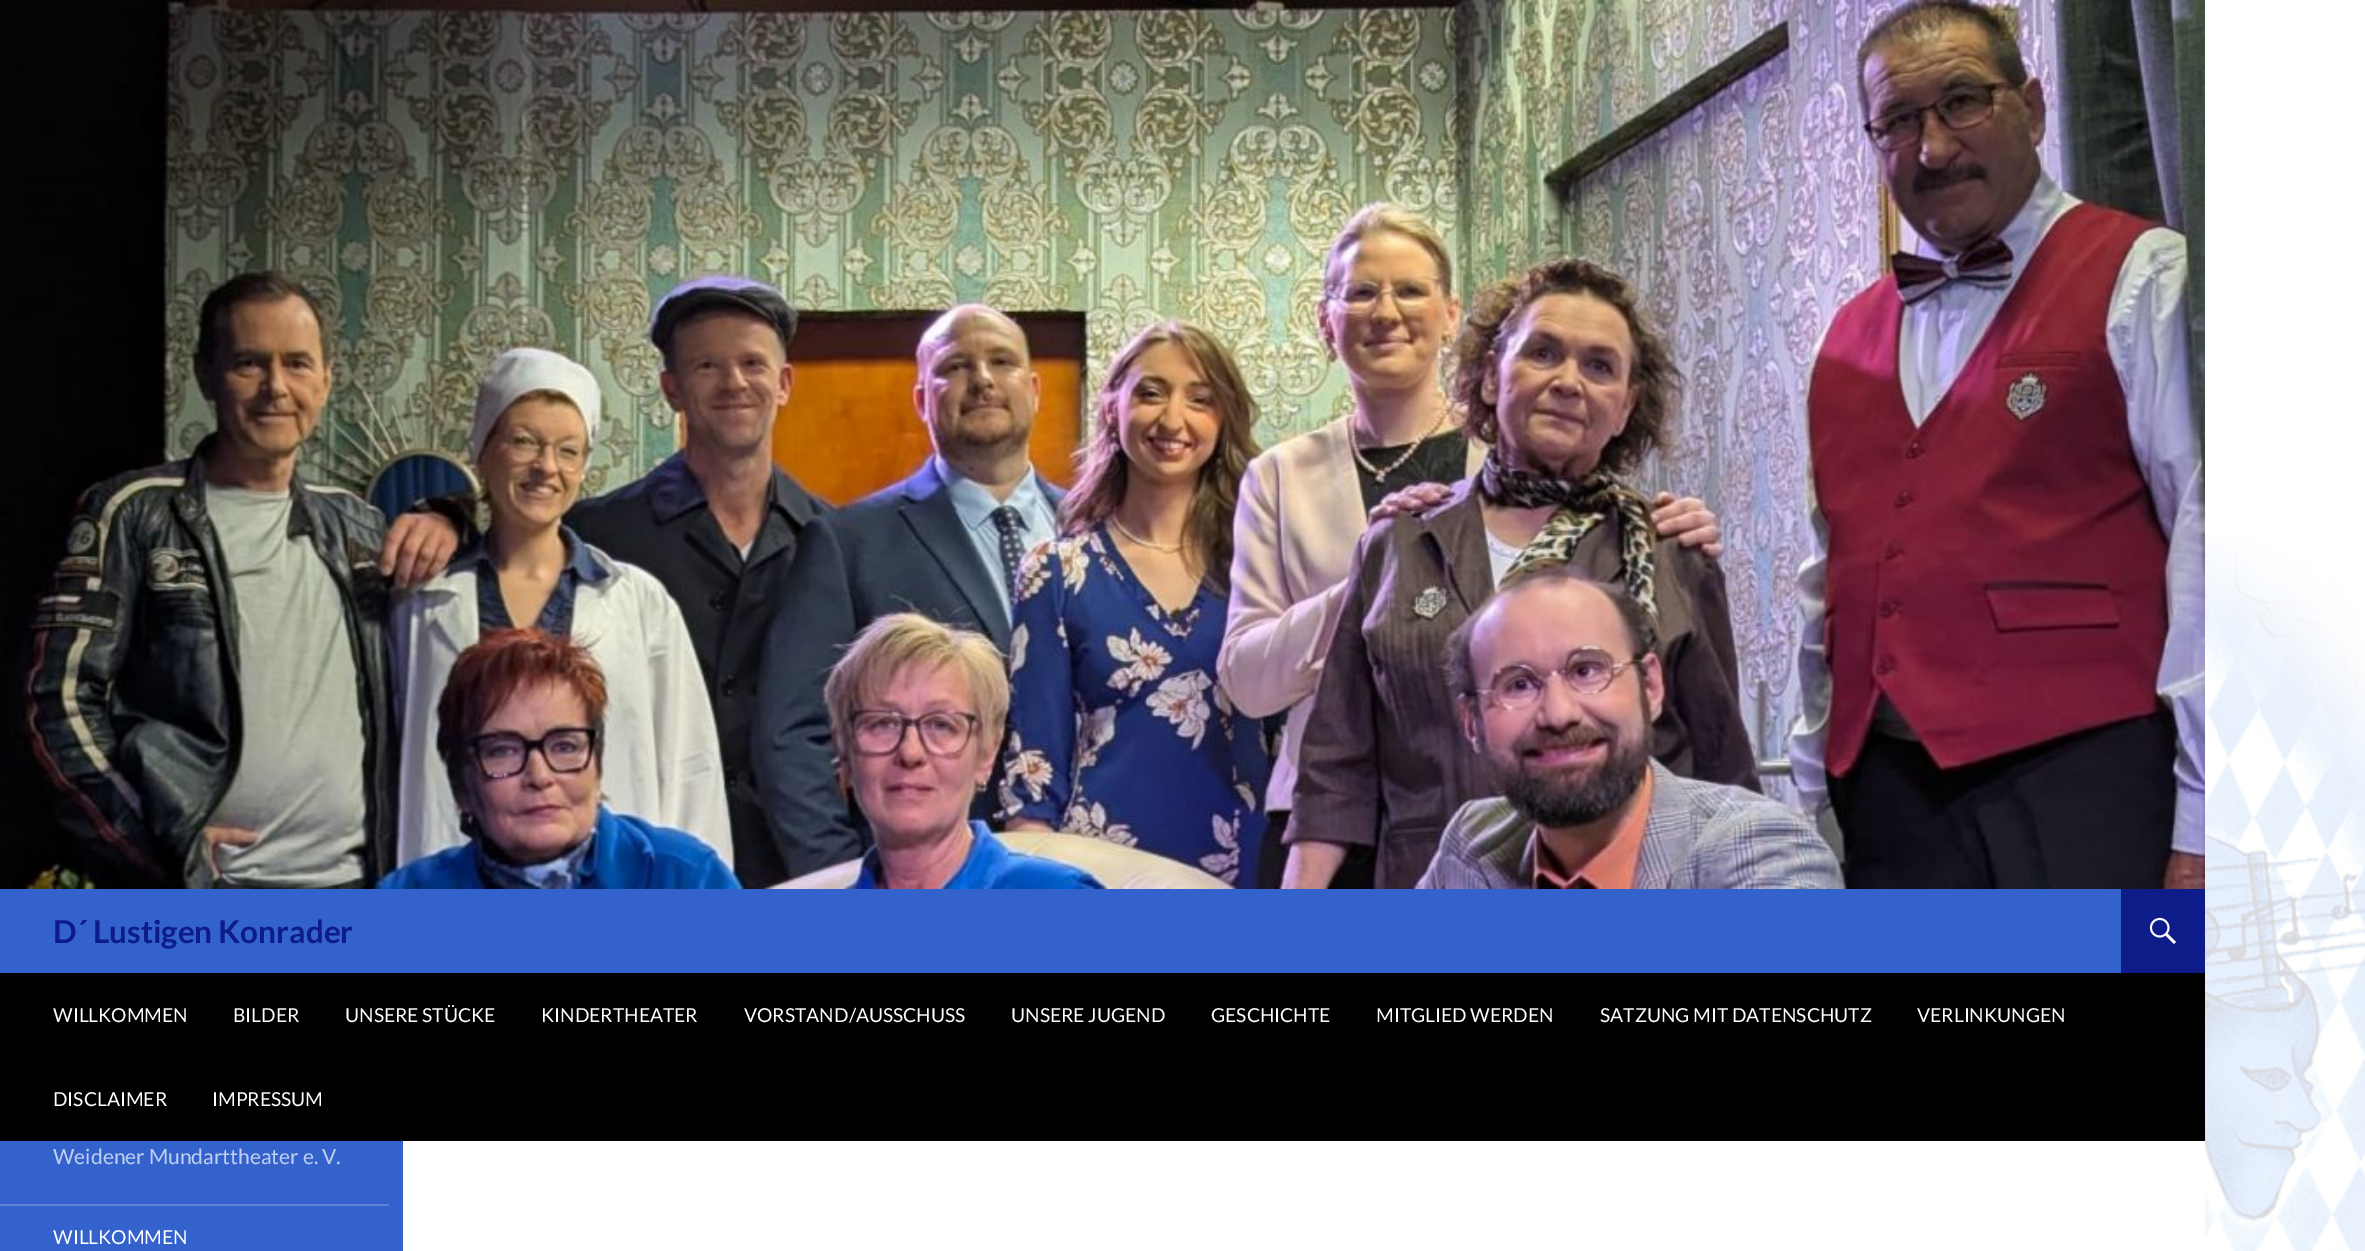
%!PS-Adobe-3.0
%%BoundingBox: 0 0 2365 1251
%%LanguageLevel: 3
%%Pages: 1
%%EndComments
%%BeginProlog
/fn { [ exch dup neg 0 0 3 -1 roll 0 0 ] selectfont } def
/tx { moveto show } def
/bx { rectfill } def
/im { 5 dict begin { /h /w /y /x /name } { exch def } forall
  gsave x y translate w h scale
  w h 8 [w 0 0 h 0 0] name (r) file false 3 colorimage grestore end } def
%%EndProlog
%%BeginSetup
<< /PageSize [2365 1251] >> setpagedevice
%%EndSetup
%%Page: 1 1
0 1251 translate 1 -1 scale
4 setmiterlimit
1 setgray
0 0 2365 1251 bx
(image0.raw) 2205 537 160 714 im
(image1.raw) 0 0 2205 889 im
0 setgray
0 973 2205 168 bx
0.2 0.384 0.8 setrgbcolor
0 889 2121 84 bx
/Lato-Bold 31.5 fn
0.051 0.11 0.537 setrgbcolor
(D´ Lustigen Konrader) 53 943 tx
2121 889 84 84 bx
(image2.raw) 2149 917 27 27 im
/Lato-Regular 19.25 fn
1 setgray
(WILLKOMMEN) 53 1022 tx
(BILDER) 233 1022 tx
(UNSERE STÜCKE) 345 1022 tx
(KINDERTHEATER) 541 1022 tx
(VORSTAND/AUSSCHUSS) 744 1022 tx
(UNSERE JUGEND) 1011 1022 tx
(GESCHICHTE) 1211 1022 tx
(MITGLIED WERDEN) 1376 1022 tx
(SATZUNG MIT DATENSCHUTZ) 1600 1022 tx
(VERLINKUNGEN) 1917 1022 tx
(DISCLAIMER) 53 1106 tx
(IMPRESSUM) 212 1106 tx
0.2 0.384 0.8 setrgbcolor
0 1141 403 110 bx
/Lato-Regular 21 fn
0.761 0.816 0.941 setrgbcolor
(Weidener Mundarttheater e. V.) 53 1164 tx
0.361 0.506 0.839 setrgbcolor
0 1204 389 2 bx
/Lato-Regular 19.25 fn
1 setgray
(WILLKOMMEN) 53 1244 tx
showpage
%%EOF
